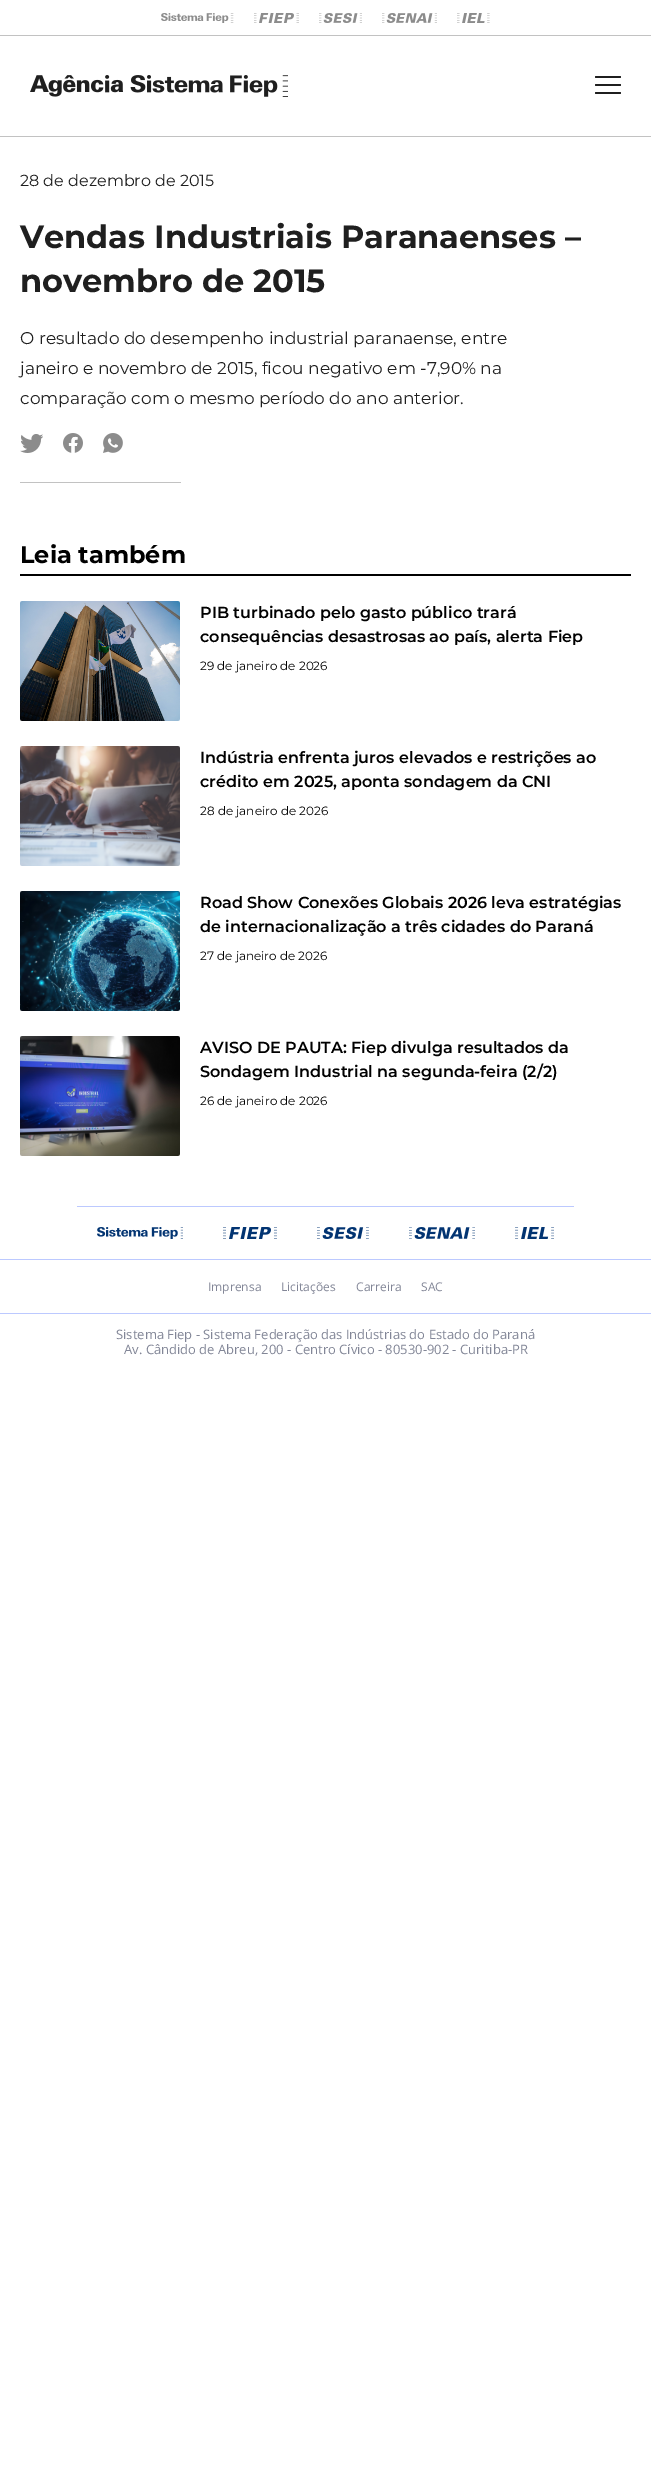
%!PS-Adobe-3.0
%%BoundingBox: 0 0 651 2487
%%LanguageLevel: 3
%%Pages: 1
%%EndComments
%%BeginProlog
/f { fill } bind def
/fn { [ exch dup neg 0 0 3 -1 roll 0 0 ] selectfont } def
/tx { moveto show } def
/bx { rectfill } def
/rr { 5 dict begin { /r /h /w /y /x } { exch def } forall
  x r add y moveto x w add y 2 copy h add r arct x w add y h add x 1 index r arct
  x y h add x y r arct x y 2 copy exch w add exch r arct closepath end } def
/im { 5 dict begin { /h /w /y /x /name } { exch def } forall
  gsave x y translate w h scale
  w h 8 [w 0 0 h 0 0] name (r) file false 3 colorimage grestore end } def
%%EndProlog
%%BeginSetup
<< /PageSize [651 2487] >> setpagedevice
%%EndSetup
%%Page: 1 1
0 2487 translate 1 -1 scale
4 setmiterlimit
1 setgray
0 0 651 2487 bx
0.761 setgray
0 35 651 1 bx
(image0.raw) 161 13 73 10 im
(image1.raw) 254 13 45 10 im
(image2.raw) 319 13 43 10 im
(image3.raw) 382 13 55 10 im
(image4.raw) 457 13 33 10 im
0 136 651 1 bx
(image5.raw) 30 75 258 22 im
0.122 setgray
595 76 26 2 1 rr f
595 84 26 2 1 rr f
595 92 26 2 1 rr f
/Montserrat-Regular 16 fn
(28 de dezembro de 2015) 20 186 tx
/Montserrat-Bold 32 fn
(Vendas Industriais Paranaenses –) 20 248 tx
(novembro de 2015) 20 292 tx
/Montserrat-Regular 17 fn
(O resultado do desempenho industrial paranaense, entre) 20 344 tx
(janeiro e novembro de 2015, ficou negativo em -7,90% na) 20 374 tx
(comparação com o mesmo período do ano anterior.) 20 404 tx
(image6.raw) 20 434 23 19 im
(image7.raw) 63 433 20 20 im
(image8.raw) 103 433 20 20 im
0.761 setgray
20 482 161 1 bx
0 setgray
20 574 611 2 bx
/Montserrat-Bold 24 fn
(Leia também) 20 563 tx
(image9.raw) 20 601 160 120 im
/Montserrat-SemiBold 16 fn
(PIB turbinado pelo gasto público trará) 200 618 tx
(consequências desastrosas ao país, alerta Fiep) 200 642 tx
/Montserrat-Regular 12 fn
(29 de janeiro de 2026) 200 670 tx
(image10.raw) 20 746 160 120 im
/Montserrat-SemiBold 16 fn
(Indústria enfrenta juros elevados e restrições ao) 200 763 tx
(crédito em 2025, aponta sondagem da CNI) 200 787 tx
/Montserrat-Regular 12 fn
(28 de janeiro de 2026) 200 815 tx
(image11.raw) 20 891 160 120 im
/Montserrat-SemiBold 16 fn
(Road Show Conexões Globais 2026 leva estratégias) 200 908 tx
(de internacionalização a três cidades do Paraná) 200 932 tx
/Montserrat-Regular 12 fn
(27 de janeiro de 2026) 200 960 tx
(image12.raw) 20 1036 160 120 im
/Montserrat-SemiBold 16 fn
(AVISO DE PAUTA: Fiep divulga resultados da) 200 1053 tx
(Sondagem Industrial na segunda-feira \(2/2\)) 200 1077 tx
/Montserrat-Regular 12 fn
(26 de janeiro de 2026) 200 1105 tx
0.737 0.788 1 setrgbcolor
77 1206 497 1 bx
(image13.raw) 97 1227 86 12 im
(image14.raw) 223 1227 54 12 im
(image15.raw) 317 1227 52 12 im
(image16.raw) 409 1227 66 12 im
(image17.raw) 515 1227 39 12 im
0 1259 651 1 bx
/OpenSans-Regular 12 fn
0.51 0.525 0.592 setrgbcolor
(Imprensa) 208 1291 tx
(Licitações) 281 1291 tx
(Carreira) 356 1291 tx
(SAC) 421 1291 tx
0.737 0.788 1 setrgbcolor
0 1313 651 1 bx
/OpenSans-Regular 13 fn
0.51 0.525 0.592 setrgbcolor
(Sistema Fiep - Sistema Federação das Indústrias do Estado do Paraná) 116 1339 tx
(Av. Cândido de Abreu, 200 - Centro Cívico - 80530-902 - Curitiba-PR) 124 1354 tx
showpage
%%EOF
